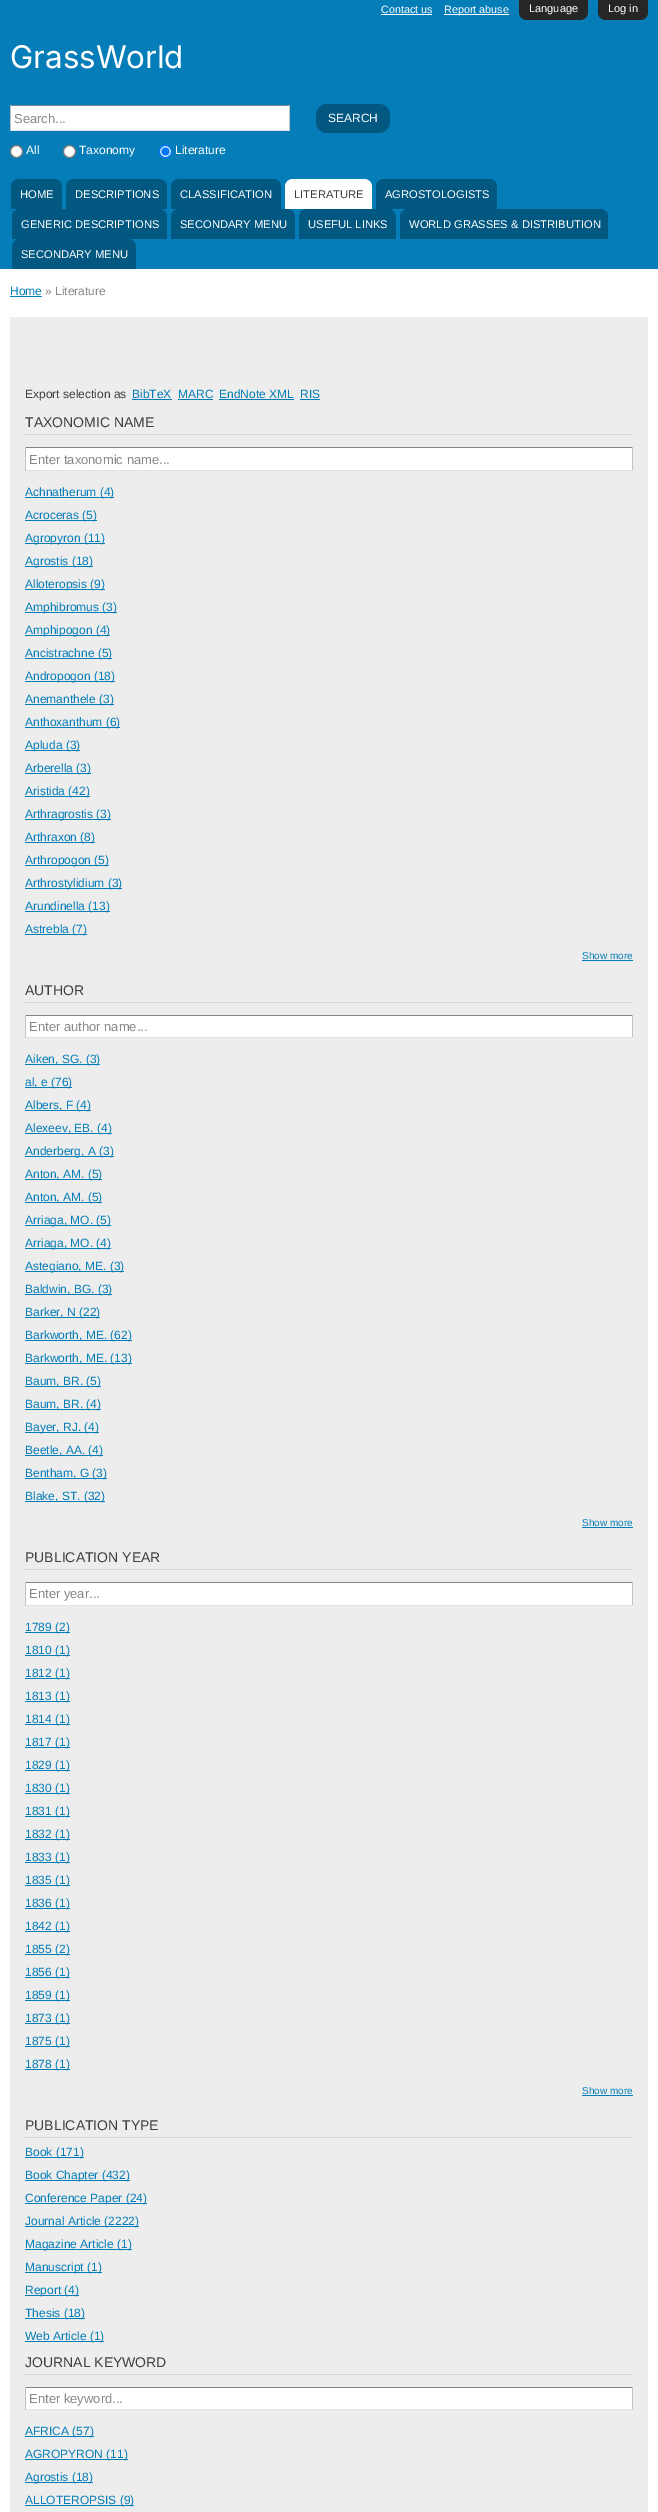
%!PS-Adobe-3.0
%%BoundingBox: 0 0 658 2512
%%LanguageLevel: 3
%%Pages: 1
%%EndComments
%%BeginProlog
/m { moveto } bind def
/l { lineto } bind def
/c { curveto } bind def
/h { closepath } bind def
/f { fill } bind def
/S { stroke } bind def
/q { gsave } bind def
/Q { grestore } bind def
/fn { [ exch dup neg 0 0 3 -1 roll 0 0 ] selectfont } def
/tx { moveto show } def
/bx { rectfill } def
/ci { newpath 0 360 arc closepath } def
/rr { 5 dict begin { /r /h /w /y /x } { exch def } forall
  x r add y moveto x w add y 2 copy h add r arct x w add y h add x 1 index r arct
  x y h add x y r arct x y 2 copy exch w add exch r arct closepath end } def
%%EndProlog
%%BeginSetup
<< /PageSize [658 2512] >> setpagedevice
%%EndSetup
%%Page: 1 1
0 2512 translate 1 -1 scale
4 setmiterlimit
1 setgray
0 0 658 2512 bx
0.016 0.49 0.722 setrgbcolor
0 0 658 269 bx
0.149 setgray
519 0 m 588 0 l 588 12 l 588 16.5 584.5 20 580 20 c 527 20 l 522.5 20 519 16.5 519 12 c h f
/LiberationSans-Regular 11 fn
1 setgray
(Language) 529 12 tx
0.149 setgray
598 0 m 648 0 l 648 12 l 648 16.5 644.5 20 640 20 c 606 20 l 601.5 20 598 16.5 598 12 c h f
1 setgray
(Log in) 608 12 tx
/LiberationSans-Regular 10.75 fn
(Contact us) 381 13 tx
381 14 51 1 bx
444 14 65 1 bx
(Report abuse) 444 13 tx
/Inter-Regular 31.25 fn
(GrassWorld) 10 68 tx
11 106 278 24 bx
0.518 setgray
10 105 280 1 bx
0.757 setgray
289 105 1 26 bx
0.882 setgray
10 130 280 1 bx
0.757 setgray
10 105 1 26 bx
/LiberationSans-Regular 13 fn
0.533 setgray
(Search...) 14 123 tx
0.012 0.345 0.506 setrgbcolor
316 104 74 29 11 rr f
/LiberationSans-Regular 12 fn
1 setgray
(SEARCH) 328 122 tx
16.5 151.5 6 ci q f Q
0.463 setgray
S
1 setgray
(All) 26 154 tx
69.5 151.5 6 ci q f Q
0.463 setgray
S
1 setgray
(Taxonomy) 79 154 tx
165.5 151.5 6 ci q f Q
0 0.459 1 setrgbcolor
S
165.5 151.5 4 ci f
1 setgray
(Literature) 175 154 tx
0.012 0.345 0.506 setrgbcolor
19 179 m 54 179 l 58.5 179 62 182.5 62 187 c 62 209 l 11 209 l 11 187 l 11 182.5 14.5 179 19 179 c h f
/LiberationSans-Regular 11.2 fn
1 setgray
(HOME) 20 198 tx
0.012 0.345 0.506 setrgbcolor
74 179 m 159 179 l 163.5 179 167 182.5 167 187 c 167 209 l 66 209 l 66 187 l 66 182.5 69.5 179 74 179 c h f
1 setgray
(DESCRIPTIONS) 75 198 tx
0.012 0.345 0.506 setrgbcolor
179 179 m 273 179 l 277.5 179 281 182.5 281 187 c 281 209 l 171 209 l 171 187 l 171 182.5 174.5 179 179 179 c h f
1 setgray
(CLASSIFICATION) 180 198 tx
293 179 m 364 179 l 368.5 179 372 182.5 372 187 c 372 209 l 285 209 l 285 187 l 285 182.5 288.5 179 293 179 c h f
0.243 setgray
(LITERATURE) 294 198 tx
0.012 0.345 0.506 setrgbcolor
384 179 m 489 179 l 493.5 179 497 182.5 497 187 c 497 209 l 376 209 l 376 187 l 376 182.5 379.5 179 384 179 c h f
1 setgray
(AGROSTOLOGISTS) 385 198 tx
0.012 0.345 0.506 setrgbcolor
20 209 m 159 209 l 163.5 209 167 212.5 167 217 c 167 239 l 12 239 l 12 217 l 12 212.5 15.5 209 20 209 c h f
1 setgray
(GENERIC DESCRIPTIONS) 21 228 tx
0.012 0.345 0.506 setrgbcolor
179 209 m 287 209 l 291.5 209 295 212.5 295 217 c 295 239 l 171 239 l 171 217 l 171 212.5 174.5 209 179 209 c h f
1 setgray
(SECONDARY MENU) 180 228 tx
0.012 0.345 0.506 setrgbcolor
307 209 m 388 209 l 392.5 209 396 212.5 396 217 c 396 239 l 299 239 l 299 217 l 299 212.5 302.5 209 307 209 c h f
1 setgray
(USEFUL LINKS) 308 228 tx
0.012 0.345 0.506 setrgbcolor
408 209 m 600 209 l 604.5 209 608 212.5 608 217 c 608 239 l 400 239 l 400 217 l 400 212.5 403.5 209 408 209 c h f
1 setgray
(WORLD GRASSES & DISTRIBUTION) 409 228 tx
0.012 0.345 0.506 setrgbcolor
20 239 m 128 239 l 132.5 239 136 242.5 136 247 c 136 269 l 12 269 l 12 247 l 12 242.5 15.5 239 20 239 c h f
1 setgray
(SECONDARY MENU) 21 258 tx
/LiberationSans-Regular 12 fn
0.016 0.49 0.722 setrgbcolor
(Home) 10 295 tx
10 296 32 1 bx
0.533 setgray
(» Literature) 45 295 tx
0.929 setgray
10 317 638 2195 bx
0.243 setgray
(Export selection as) 25 398 tx
0.016 0.49 0.722 setrgbcolor
(BibTeX) 132 398 tx
132 399 40 1 bx
(MARC) 178 398 tx
178 399 35 1 bx
(EndNote XML) 219 398 tx
219 399 75 1 bx
(RIS) 300 398 tx
300 399 20 1 bx
0.839 setgray
25 434 608 1 bx
/LiberationSans-Regular 14 fn
0.243 setgray
(TAXONOMIC NAME) 25 427 tx
1 setgray
26 448 606 22 bx
0.518 setgray
25 447 608 1 bx
0.757 setgray
632 447 1 24 bx
0.882 setgray
25 470 608 1 bx
0.757 setgray
25 447 1 24 bx
/LiberationSans-Regular 13 fn
0.533 setgray
(Enter taxonomic name...) 29 464 tx
0.016 0.49 0.722 setrgbcolor
25 497 89 1 bx
/LiberationSans-Regular 12 fn
(Achnatherum \(4\)) 25 496 tx
25 520 72 1 bx
(Acroceras \(5\)) 25 519 tx
25 543 80 1 bx
(Agropyron \(11\)) 25 542 tx
25 566 68 1 bx
(Agrostis \(18\)) 25 565 tx
25 589 80 1 bx
(Alloteropsis \(9\)) 25 588 tx
25 612 92 1 bx
(Amphibromus \(3\)) 25 611 tx
25 635 85 1 bx
(Amphipogon \(4\)) 25 634 tx
25 658 87 1 bx
(Ancistrachne \(5\)) 25 657 tx
25 681 90 1 bx
(Andropogon \(18\)) 25 680 tx
25 704 89 1 bx
(Anemanthele \(3\)) 25 703 tx
25 727 95 1 bx
(Anthoxanthum \(6\)) 25 726 tx
25 750 55 1 bx
(Apluda \(3\)) 25 749 tx
25 773 66 1 bx
(Arberella \(3\)) 25 772 tx
25 796 65 1 bx
(Aristida \(42\)) 25 795 tx
25 819 86 1 bx
(Arthragrostis \(3\)) 25 818 tx
25 842 70 1 bx
(Arthraxon \(8\)) 25 841 tx
25 865 84 1 bx
(Arthropogon \(5\)) 25 864 tx
25 888 97 1 bx
(Arthrostylidium \(3\)) 25 887 tx
25 911 85 1 bx
(Arundinella \(13\)) 25 910 tx
25 934 62 1 bx
(Astrebla \(7\)) 25 933 tx
/LiberationSans-Regular 10 fn
(Show more) 582 959 tx
582 960 51 1 bx
0.839 setgray
25 1002 608 1 bx
/LiberationSans-Regular 14 fn
0.243 setgray
(AUTHOR) 25 995 tx
1 setgray
26 1016 606 21 bx
0.518 setgray
25 1015 608 1 bx
0.757 setgray
632 1015 1 23 bx
0.882 setgray
25 1037 608 1 bx
0.757 setgray
25 1015 1 23 bx
/LiberationSans-Regular 13 fn
0.533 setgray
(Enter author name...) 29 1031 tx
0.016 0.49 0.722 setrgbcolor
25 1064 75 1 bx
/LiberationSans-Regular 12 fn
(Aiken, SG. \(3\)) 25 1063 tx
25 1087 47 1 bx
(al, e \(76\)) 25 1086 tx
25 1110 66 1 bx
(Albers, F \(4\)) 25 1109 tx
25 1133 87 1 bx
(Alexeev, EB. \(4\)) 25 1132 tx
25 1156 89 1 bx
(Anderberg, A \(3\)) 25 1155 tx
25 1179 77 1 bx
(Anton, AM. \(5\)) 25 1178 tx
25 1202 77 1 bx
(Anton, AM. \(5\)) 25 1201 tx
25 1225 86 1 bx
(Arriaga, MO. \(5\)) 25 1224 tx
25 1248 86 1 bx
(Arriaga, MO. \(4\)) 25 1247 tx
25 1271 99 1 bx
(Astegiano, ME. \(3\)) 25 1270 tx
25 1294 87 1 bx
(Baldwin, BG. \(3\)) 25 1293 tx
25 1317 75 1 bx
(Barker, N \(22\)) 25 1316 tx
25 1340 107 1 bx
(Barkworth, ME. \(62\)) 25 1339 tx
25 1363 107 1 bx
(Barkworth, ME. \(13\)) 25 1362 tx
25 1386 76 1 bx
(Baum, BR. \(5\)) 25 1385 tx
25 1409 76 1 bx
(Baum, BR. \(4\)) 25 1408 tx
25 1432 74 1 bx
(Bayer, RJ. \(4\)) 25 1431 tx
25 1455 78 1 bx
(Beetle, AA. \(4\)) 25 1454 tx
25 1478 82 1 bx
(Bentham, G \(3\)) 25 1477 tx
25 1501 80 1 bx
(Blake, ST. \(32\)) 25 1500 tx
/LiberationSans-Regular 10 fn
(Show more) 582 1526 tx
582 1527 51 1 bx
0.839 setgray
25 1569 608 1 bx
/LiberationSans-Regular 14 fn
0.243 setgray
(PUBLICATION YEAR) 25 1562 tx
1 setgray
26 1583 606 22 bx
0.518 setgray
25 1582 608 1 bx
0.757 setgray
632 1582 1 24 bx
0.882 setgray
25 1605 608 1 bx
0.757 setgray
25 1582 1 24 bx
/LiberationSans-Regular 13 fn
0.533 setgray
(Enter year...) 29 1598 tx
0.016 0.49 0.722 setrgbcolor
25 1632 45 1 bx
/LiberationSans-Regular 12 fn
(1789 \(2\)) 25 1631 tx
25 1655 45 1 bx
(1810 \(1\)) 25 1654 tx
25 1678 45 1 bx
(1812 \(1\)) 25 1677 tx
25 1701 45 1 bx
(1813 \(1\)) 25 1700 tx
25 1724 45 1 bx
(1814 \(1\)) 25 1723 tx
25 1747 45 1 bx
(1817 \(1\)) 25 1746 tx
25 1770 45 1 bx
(1829 \(1\)) 25 1769 tx
25 1793 45 1 bx
(1830 \(1\)) 25 1792 tx
25 1816 45 1 bx
(1831 \(1\)) 25 1815 tx
25 1839 45 1 bx
(1832 \(1\)) 25 1838 tx
25 1862 45 1 bx
(1833 \(1\)) 25 1861 tx
25 1885 45 1 bx
(1835 \(1\)) 25 1884 tx
25 1908 45 1 bx
(1836 \(1\)) 25 1907 tx
25 1931 45 1 bx
(1842 \(1\)) 25 1930 tx
25 1954 45 1 bx
(1855 \(2\)) 25 1953 tx
25 1977 45 1 bx
(1856 \(1\)) 25 1976 tx
25 2000 45 1 bx
(1859 \(1\)) 25 1999 tx
25 2023 45 1 bx
(1873 \(1\)) 25 2022 tx
25 2046 45 1 bx
(1875 \(1\)) 25 2045 tx
25 2069 45 1 bx
(1878 \(1\)) 25 2068 tx
/LiberationSans-Regular 10 fn
(Show more) 582 2094 tx
582 2095 51 1 bx
0.839 setgray
25 2137 608 1 bx
/LiberationSans-Regular 14 fn
0.243 setgray
(PUBLICATION TYPE) 25 2130 tx
0.016 0.49 0.722 setrgbcolor
25 2157 59 1 bx
/LiberationSans-Regular 12 fn
(Book \(171\)) 25 2156 tx
25 2180 105 1 bx
(Book Chapter \(432\)) 25 2179 tx
25 2203 122 1 bx
(Conference Paper \(24\)) 25 2202 tx
25 2226 114 1 bx
(Journal Article \(2222\)) 25 2225 tx
25 2249 107 1 bx
(Magazine Article \(1\)) 25 2248 tx
25 2272 77 1 bx
(Manuscript \(1\)) 25 2271 tx
25 2295 54 1 bx
(Report \(4\)) 25 2294 tx
25 2318 60 1 bx
(Thesis \(18\)) 25 2317 tx
25 2341 79 1 bx
(Web Article \(1\)) 25 2340 tx
0.839 setgray
25 2374 608 1 bx
/LiberationSans-Regular 14 fn
0.243 setgray
(JOURNAL KEYWORD) 25 2367 tx
1 setgray
26 2388 606 21 bx
0.518 setgray
25 2387 608 1 bx
0.757 setgray
632 2387 1 23 bx
0.882 setgray
25 2409 608 1 bx
0.757 setgray
25 2387 1 23 bx
/LiberationSans-Regular 13 fn
0.533 setgray
(Enter keyword...) 29 2403 tx
0.016 0.49 0.722 setrgbcolor
25 2436 69 1 bx
/LiberationSans-Regular 12 fn
(AFRICA \(57\)) 25 2435 tx
25 2459 103 1 bx
(AGROPYRON \(11\)) 25 2458 tx
25 2482 68 1 bx
(Agrostis \(18\)) 25 2481 tx
25 2505 109 1 bx
(ALLOTEROPSIS \(9\)) 25 2504 tx
showpage
%%EOF
